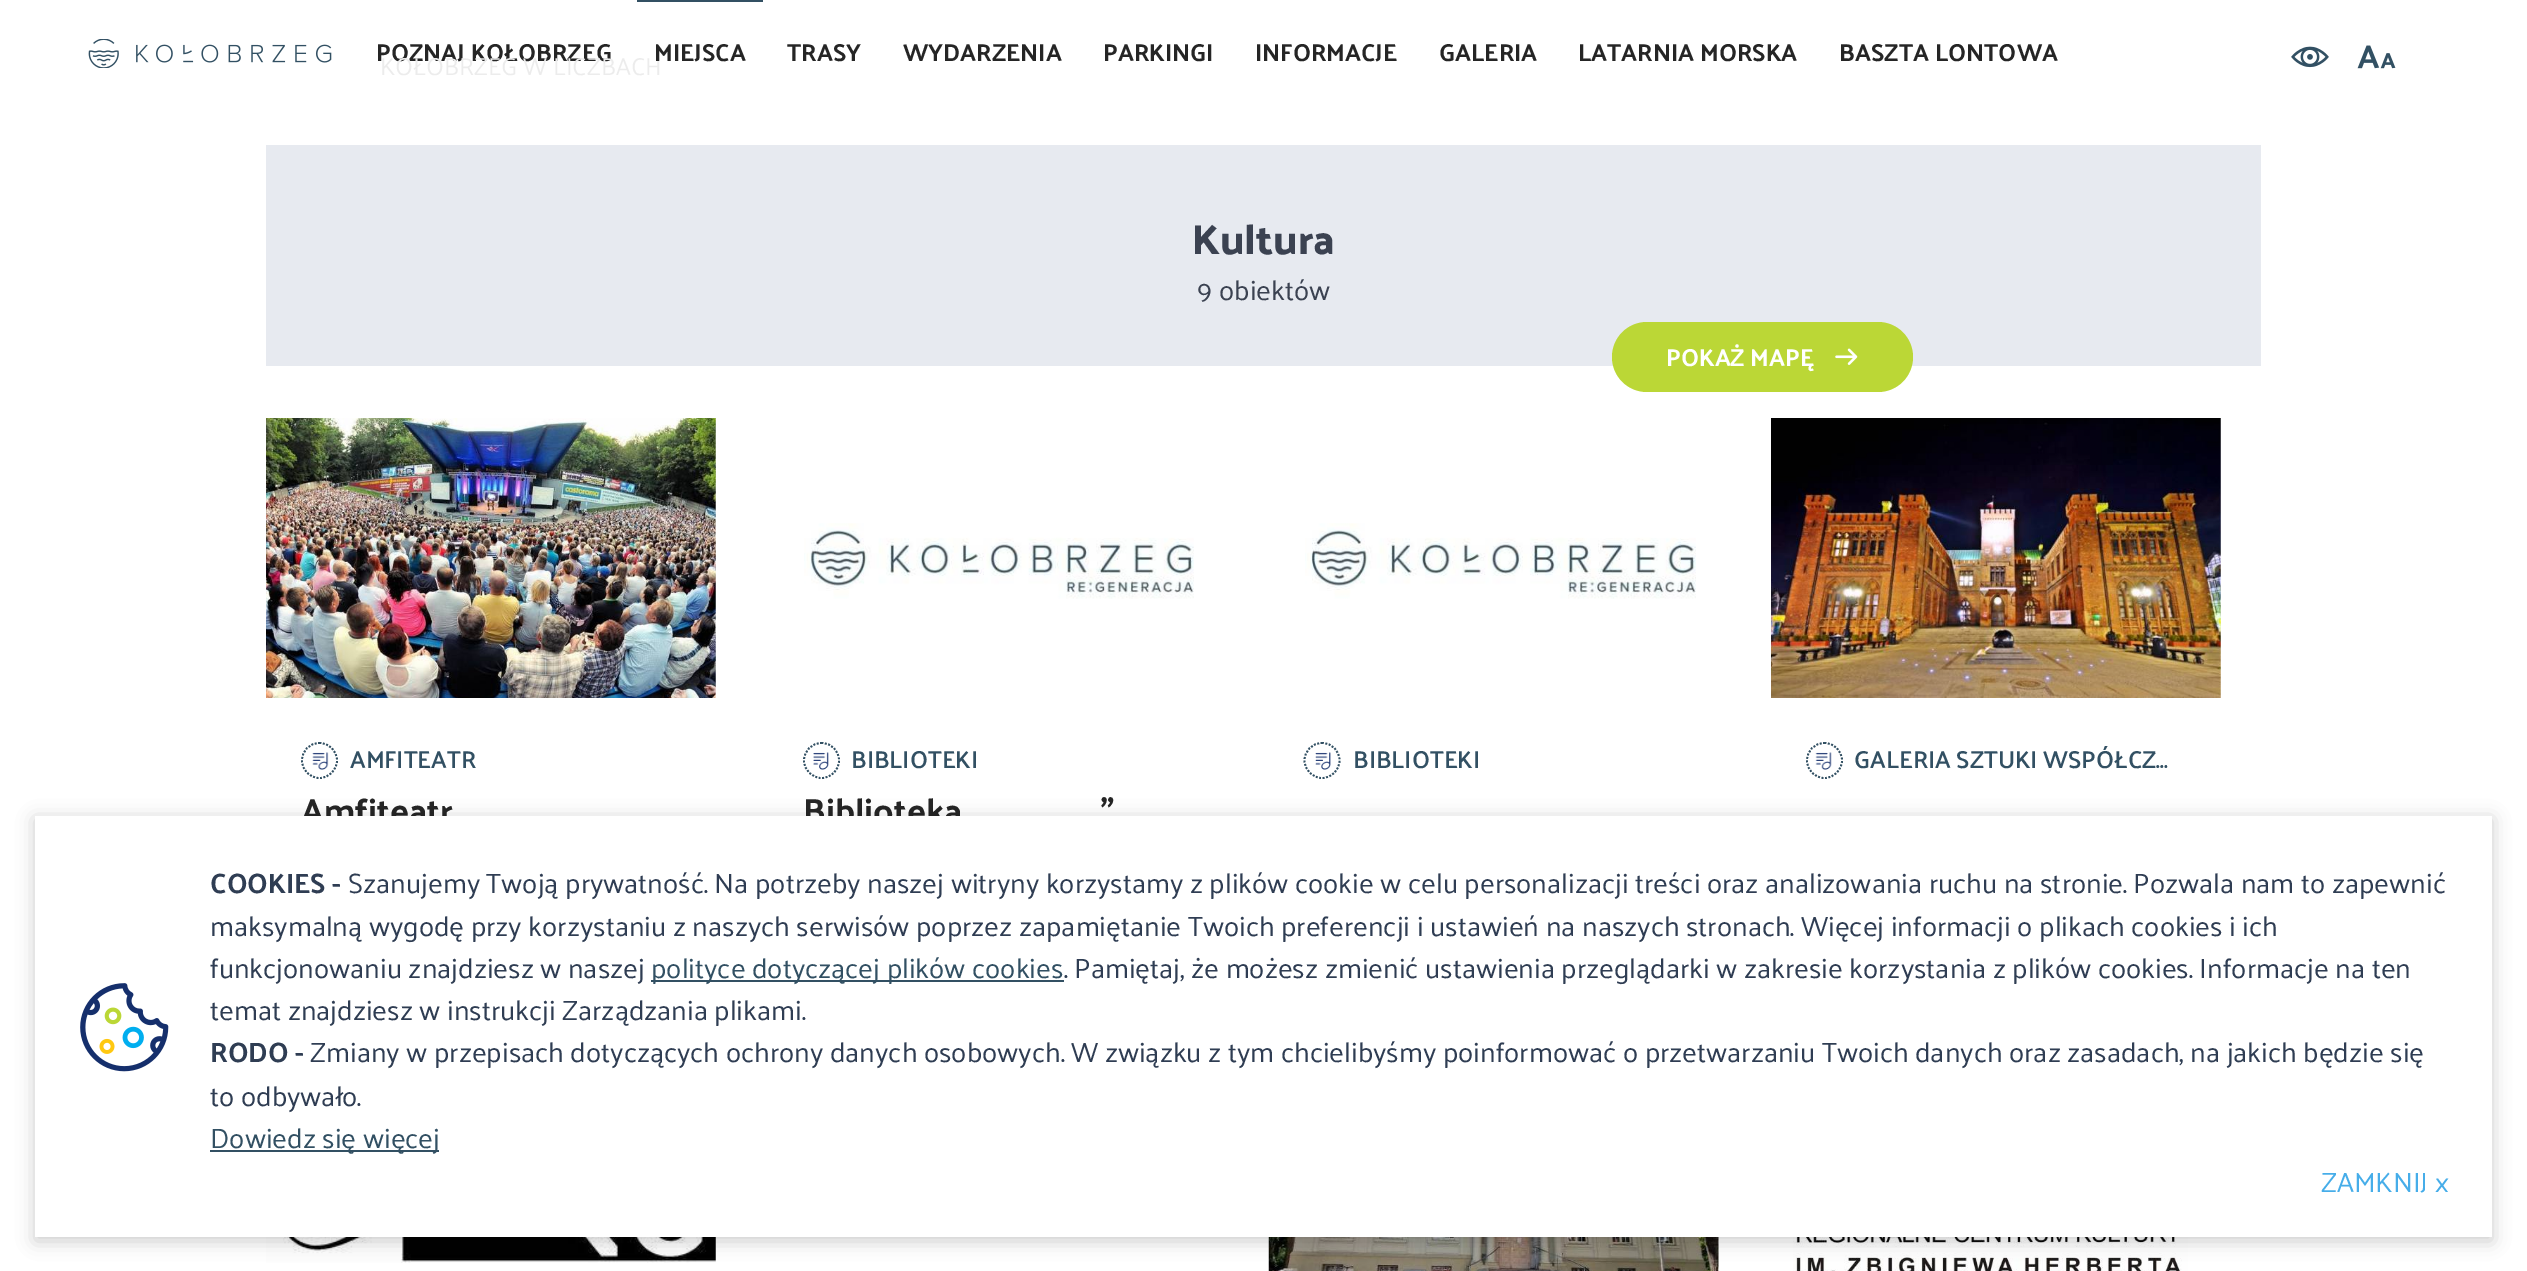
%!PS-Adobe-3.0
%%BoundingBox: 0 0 2527 1271
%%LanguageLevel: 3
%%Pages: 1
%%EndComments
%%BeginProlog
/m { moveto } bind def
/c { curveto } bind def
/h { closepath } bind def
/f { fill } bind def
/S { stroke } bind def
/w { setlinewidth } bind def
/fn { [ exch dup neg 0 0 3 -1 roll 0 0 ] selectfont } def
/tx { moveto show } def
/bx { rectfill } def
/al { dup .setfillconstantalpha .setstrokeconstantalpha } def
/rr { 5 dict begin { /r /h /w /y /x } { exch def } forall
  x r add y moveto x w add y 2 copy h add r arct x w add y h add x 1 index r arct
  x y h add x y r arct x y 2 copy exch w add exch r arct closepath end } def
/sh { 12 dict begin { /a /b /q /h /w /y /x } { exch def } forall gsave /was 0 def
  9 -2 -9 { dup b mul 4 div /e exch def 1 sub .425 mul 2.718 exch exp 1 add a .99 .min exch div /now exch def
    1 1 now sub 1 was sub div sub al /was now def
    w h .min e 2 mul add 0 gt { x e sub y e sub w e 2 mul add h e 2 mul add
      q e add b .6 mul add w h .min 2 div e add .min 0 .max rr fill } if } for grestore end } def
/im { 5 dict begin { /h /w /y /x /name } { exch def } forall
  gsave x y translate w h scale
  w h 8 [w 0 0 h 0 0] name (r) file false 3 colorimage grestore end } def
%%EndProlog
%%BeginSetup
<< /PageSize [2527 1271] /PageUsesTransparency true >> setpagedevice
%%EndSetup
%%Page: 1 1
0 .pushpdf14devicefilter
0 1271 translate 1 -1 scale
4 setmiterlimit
1 setgray
0 0 2527 1271 bx
(image0.raw) 88 39 244 29 im
/Palanquin-Bold 24.5 fn
0.145 setgray
(POZNAJ KOŁOBRZEG) 376 61 tx
/Palanquin-Regular 24.5 fn
0.925 setgray
(KOŁOBRZEG W LICZBACH) 380 75 tx
0.196 0.314 0.388 setrgbcolor
637 0 126 2 bx
/Palanquin-Bold 24.5 fn
0.145 setgray
(MIEJSCA) 654 61 tx
(TRASY) 787 61 tx
(WYDARZENIA) 903 61 tx
(PARKINGI) 1103 61 tx
(INFORMACJE) 1255 61 tx
(GALERIA) 1439 61 tx
(LATARNIA MORSKA) 1578 61 tx
(BASZTA LONTOWA) 1839 61 tx
(image1.raw) 2291 46 38 22 im
(image2.raw) 2357 45 39 24 im
0.906 0.918 0.941 setrgbcolor
266 145 1995 221 bx
/PalanquinDark-Medium 42 fn
0.231 0.259 0.318 setrgbcolor
(Kultura) 1192 254 tx
/Palanquin-Regular 28 fn
(9 obiektów) 1197 300 tx
0.733 0.843 0.212 setrgbcolor
1612 322 301 70 35 rr f
/Palanquin-Bold 24.5 fn
1 setgray
(POKAŻ MAPĘ) 1666 366 tx
(image3.raw) 1835 348 23 17 im
(image4.raw) 266 418 450 280 im
0.196 0.314 0.388 setrgbcolor
1.8 w
[1.75 1.75] 0 setdash
319.5 743 m 329 743 337 750.5 337 760.5 c 337 770 329 778 319.5 778 c 309.5 778 302 770 302 760.5 c 302 750.5 309.5 743 319.5 743 c h S
(image5.raw) 312 752 17 18 im
/Palanquin-SemiBold 24.5 fn
(AMFITEATR) 350 768 tx
/Palanquin-Bold 35 fn
0.145 setgray
(Amfiteatr) 301 823 tx
(image6.raw) 804 523 390 76 im
0.196 0.314 0.388 setrgbcolor
821.5 743 m 831.5 743 839 750.5 839 760.5 c 839 770 831.5 778 821.5 778 c 812 778 804 770 804 760.5 c 804 750.5 812 743 821.5 743 c h S
(image7.raw) 813 752 16 18 im
/Palanquin-SemiBold 24.5 fn
(BIBLIOTEKI) 851 768 tx
/Palanquin-Bold 35 fn
0.145 setgray
(Biblioteka) 803 823 tx
(") 1101 823 tx
(image8.raw) 1305 523 391 76 im
0.196 0.314 0.388 setrgbcolor
1322 743 m 1332 743 1339.5 750.5 1339.5 760.5 c 1339.5 770 1332 778 1322 778 c 1312.5 778 1304.5 770 1304.5 760.5 c 1304.5 750.5 1312.5 743 1322 743 c h S
(image9.raw) 1315 752 16 18 im
/Palanquin-SemiBold 24.5 fn
(BIBLIOTEKI) 1353 768 tx
(image10.raw) 1771 418 450 280 im
1824.5 743 m 1834 743 1842 750.5 1842 760.5 c 1842 770 1834 778 1824.5 778 c 1814.5 778 1807 770 1807 760.5 c 1807 750.5 1814.5 743 1824.5 743 c h S
(image11.raw) 1815 752 17 18 im
(GALERIA SZTUKI WSPÓŁCZ…) 1854 768 tx
(image12.raw) 266 1237 450 26 im
(image13.raw) 1268 1237 451 34 im
(image14.raw) 1793 1237 395 34 im
0 setgray
35 819 2457 422 0 9 0.2 sh
1 setgray
35 816 2457 421 bx
(image15.raw) 80 983 89 89 im
/Palanquin-Bold 28 fn
0.184 0.239 0.325 setrgbcolor
(COOKIES -) 210 893 tx
/Palanquin-Regular 28 fn
(Szanujemy Twoją prywatność. Na potrzeby naszej witryny korzystamy z plików cookie w celu personalizacji treści oraz analizowania ruchu na stronie. Pozwala nam to zapewnić) 348 893 tx
(maksymalną wygodę przy korzystaniu z naszych serwisów poprzez zapamiętanie Twoich preferencji i ustawień na naszych stronach. Więcej informacji o plikach cookies i ich) 210 936 tx
(funkcjonowaniu znajdziesz w naszej) 210 978 tx
0.196 0.314 0.388 setrgbcolor
651 980 413 2 bx
(polityce dotyczącej plików cookies) 651 978 tx
0.184 0.239 0.325 setrgbcolor
(. Pamiętaj, że możesz zmienić ustawienia przeglądarki w zakresie korzystania z plików cookies. Informacje na ten) 1064 978 tx
(temat znajdziesz w instrukcji Zarządzania plikami.) 210 1020 tx
/Palanquin-Bold 28 fn
(RODO -) 210 1062 tx
/Palanquin-Regular 28 fn
(Zmiany w przepisach dotyczących ochrony danych osobowych. W związku z tym chcielibyśmy poinformować o przetwarzaniu Twoich danych oraz zasadach, na jakich będzie się) 310 1062 tx
(to odbywało.) 210 1106 tx
0.196 0.314 0.388 setrgbcolor
210 1150 229 2 bx
(Dowiedz się więcej) 210 1148 tx
0.275 0.678 0.914 setrgbcolor
(ZAMKNIJ x) 2321 1192 tx
.poppdf14devicefilter showpage
%%EOF
